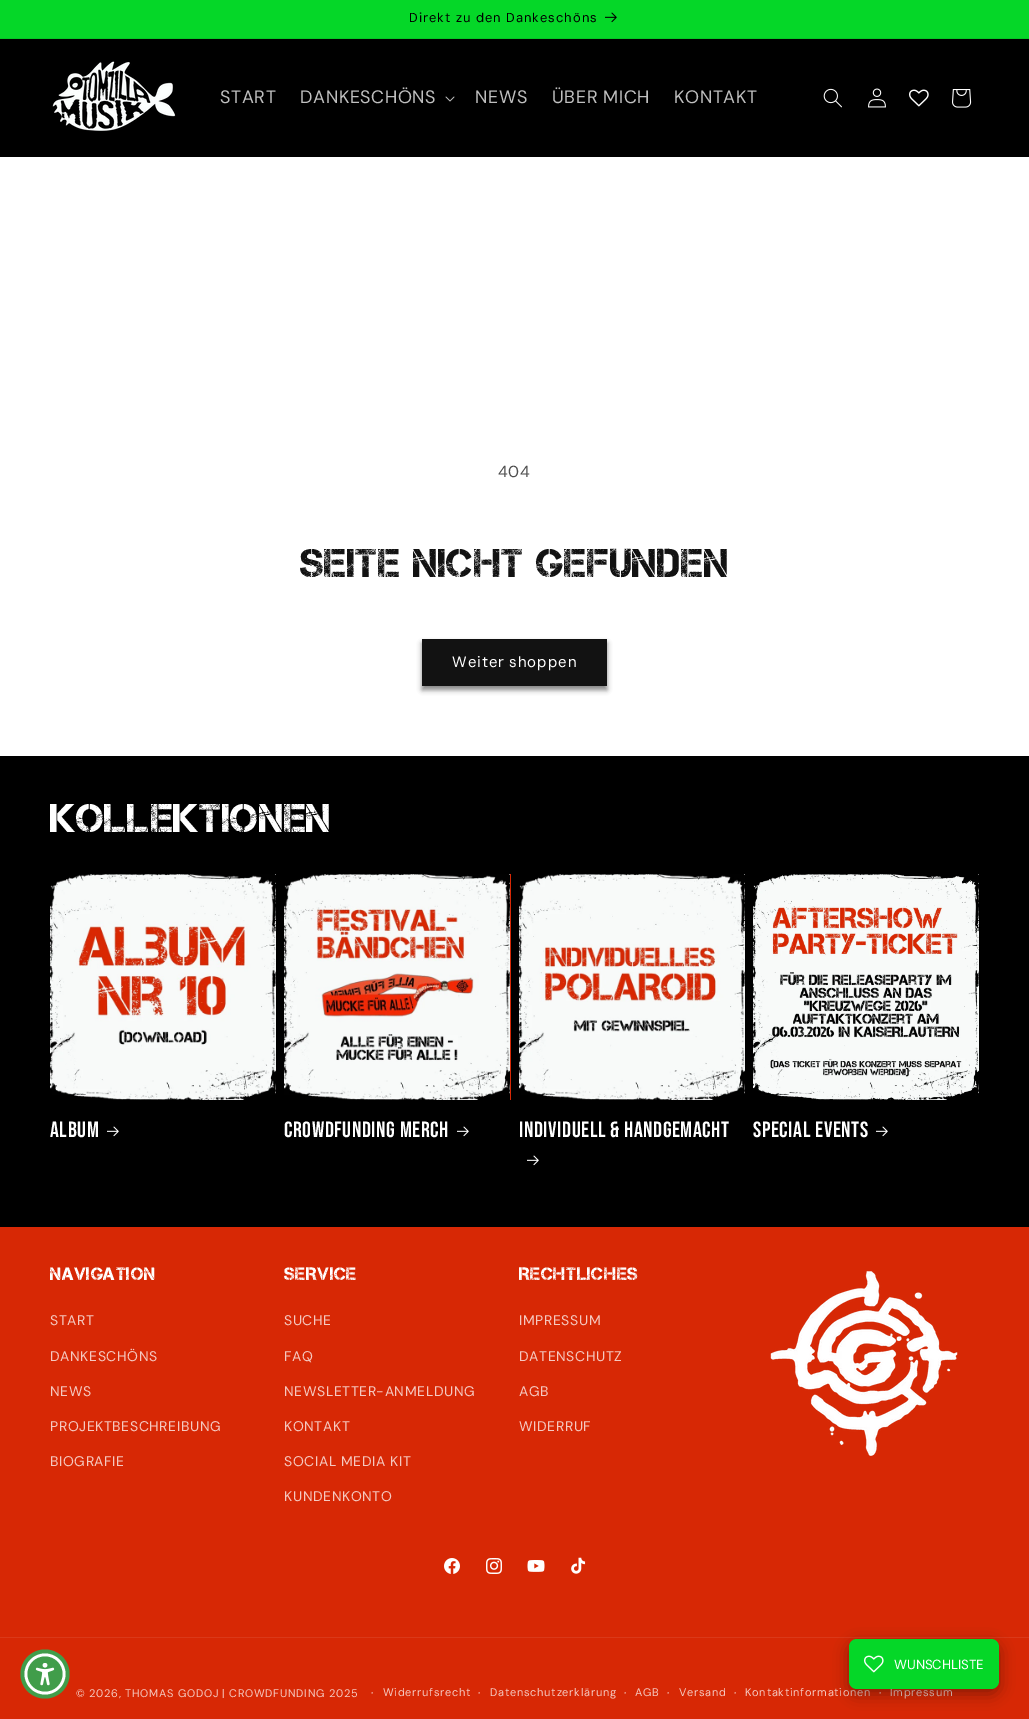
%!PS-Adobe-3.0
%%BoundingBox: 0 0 1029 1719
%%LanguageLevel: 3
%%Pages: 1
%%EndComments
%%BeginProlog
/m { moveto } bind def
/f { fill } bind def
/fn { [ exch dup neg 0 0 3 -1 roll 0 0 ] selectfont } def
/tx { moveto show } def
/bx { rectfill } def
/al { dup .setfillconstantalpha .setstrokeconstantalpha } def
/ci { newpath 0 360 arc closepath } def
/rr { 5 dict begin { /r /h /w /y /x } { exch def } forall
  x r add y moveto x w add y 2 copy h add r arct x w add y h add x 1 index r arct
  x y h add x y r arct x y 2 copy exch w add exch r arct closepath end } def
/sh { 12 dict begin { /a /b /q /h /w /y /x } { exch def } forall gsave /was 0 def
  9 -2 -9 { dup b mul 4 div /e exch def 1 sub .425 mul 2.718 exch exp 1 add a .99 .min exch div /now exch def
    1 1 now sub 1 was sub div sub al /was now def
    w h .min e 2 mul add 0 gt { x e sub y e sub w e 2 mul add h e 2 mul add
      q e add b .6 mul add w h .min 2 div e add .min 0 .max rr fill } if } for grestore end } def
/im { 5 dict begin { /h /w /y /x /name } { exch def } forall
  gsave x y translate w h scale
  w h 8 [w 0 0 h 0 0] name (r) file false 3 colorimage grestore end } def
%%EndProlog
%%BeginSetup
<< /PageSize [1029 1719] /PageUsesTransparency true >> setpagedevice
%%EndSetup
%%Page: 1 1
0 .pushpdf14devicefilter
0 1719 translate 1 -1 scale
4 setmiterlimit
1 setgray
0 0 1029 1719 bx
0.02 0.843 0.157 setrgbcolor
0 0 1029 38 bx
0.02 0.776 0.145 setrgbcolor
0 38 1029 1 bx
/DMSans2-Regular 13 fn
0 setgray
409 22 m 1 0 (Direkt zu den Dankeschöns) ashow
(image0.raw) 605 12 12 11 im
0 39 1029 118 bx
(image1.raw) 52 61 124 70 im
/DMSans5-Regular 18 fn
0.749 setgray
220 103 m 0.6 0 (START) ashow
300 103 m 0.6 0 (DANKESCHÖNS) ashow
(image2.raw) 445 96 10 6 im
475 103 m 0.6 0 (NEWS) ashow
552 103 m 0.6 0 (ÜBER MICH) ashow
674 103 m 0.6 0 (KONTAKT) ashow
(image3.raw) 823 88 19 20 im
(image4.raw) 868 88 18 20 im
(image5.raw) 909 89 20 18 im
(image6.raw) 952 89 20 19 im
/DMSans-Regular 16 fn
0.302 setgray
498 477 m 0.6 0 (404) ashow
/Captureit-Regular 40 fn
0.071 setgray
300 577 m 0.6 0 (Seite nicht gefunden) ashow
422 643 185 47 0 2.5 0.5 sh
422 639 185 47 bx
/DMSans2-Regular 15 fn
1 setgray
452 667 m -1 0 32 1 0 (Weiter shoppen) awidthshow
0 setgray
0 756 1029 471 bx
/Captureit-Regular 40 fn
1 setgray
50 832 m 0.6 0 (Kollektionen) ashow
(image7.raw) 50 874 226 226 im
/BebasNeue-Regular 22 fn
50 1137 m 0.6 0 (ALBUM) ashow
(image8.raw) 107 1126 12 11 im
0.843 0.157 0.02 setrgbcolor
510 874 1 226 bx
(image9.raw) 284 874 226 226 im
1 setgray
284 1137 m 0.6 0 (CROWDFUNDING MERCH) ashow
(image8.raw) 457 1126 12 11 im
(image10.raw) 519 874 226 226 im
519 1137 m 0.6 0 (INDIVIDUELL & HANDGEMACHT) ashow
(image8.raw) 527 1155 12 11 im
(image11.raw) 753 874 226 226 im
753 1137 m 0.6 0 (SPECIAL EVENTS) ashow
(image8.raw) 876 1126 12 11 im
0.843 0.157 0.02 setrgbcolor
0 1227 1029 492 bx
0.255 0.616 0.29 setrgbcolor
45 1674 24.5 ci f
1 setgray
45 1674 20.5 ci f
0.255 0.616 0.29 setrgbcolor
45 1674 17.5 ci f
(image12.raw) 35 1663 20 23 im
/Captureit-Regular 18 fn
1 setgray
50 1280 m 0.6 0 (NAVIGATION) ashow
/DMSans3-Regular 14 fn
0.961 0.788 0.757 setrgbcolor
50 1325 m 0.6 0 (START) ashow
50 1361 m 0.6 0 (DANKESCHÖNS) ashow
50 1396 m 0.6 0 (NEWS) ashow
50 1431 m 0.6 0 (PROJEKTBESCHREIBUNG) ashow
50 1466 m 0.6 0 (BIOGRAFIE) ashow
/Captureit-Regular 18 fn
1 setgray
284 1280 m 0.6 0 (SERVICE) ashow
/DMSans3-Regular 14 fn
0.961 0.788 0.757 setrgbcolor
284 1325 m 0.6 0 (SUCHE) ashow
284 1361 m 0.6 0 (FAQ) ashow
284 1396 m 0.6 0 (NEWSLETTER-ANMELDUNG) ashow
284 1431 m 0.6 0 (KONTAKT) ashow
284 1466 m 0.6 0 (SOCIAL MEDIA KIT) ashow
284 1501 m 0.6 0 (KUNDENKONTO) ashow
/Captureit-Regular 18 fn
1 setgray
519 1280 m 0.6 0 (RECHTLICHES) ashow
/DMSans3-Regular 14 fn
0.961 0.788 0.757 setrgbcolor
519 1325 m 0.6 0 (IMPRESSUM) ashow
519 1361 m 0.6 0 (DATENSCHUTZ) ashow
519 1396 m 0.6 0 (AGB) ashow
519 1431 m 0.6 0 (WIDERRUF) ashow
(image13.raw) 770 1271 188 185 im
(image14.raw) 444 1558 16 16 im
(image15.raw) 486 1558 16 16 im
(image16.raw) 527 1560 18 12 im
(image17.raw) 571 1557 15 17 im
0.855 0.224 0.098 setrgbcolor
0 1637 1029 1 bx
/DMSans2-Regular 11 fn
0.961 0.788 0.757 setrgbcolor
76 1697 m 0.7 0 (© 2026,) ashow
125 1697 m 0.7 0 (THOMAS GODOJ | CROWDFUNDING 2025) ashow
/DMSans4-Regular 12 fn
371 1697 m 0.7 0 (·) ashow
/DMSans2-Regular 11 fn
383 1696 m 0.7 0 (Widerrufsrecht) ashow
/DMSans4-Regular 12 fn
478 1697 m 0.7 0 (·) ashow
/DMSans2-Regular 11 fn
490 1696 m 0.7 0 (Datenschutzerklärung) ashow
/DMSans4-Regular 12 fn
624 1697 m 0.7 0 (·) ashow
/DMSans2-Regular 11 fn
635 1696 m 0.7 0 (AGB) ashow
/DMSans4-Regular 12 fn
667 1697 m 0.7 0 (·) ashow
/DMSans2-Regular 11 fn
679 1696 m 0.7 0 (Versand) ashow
/DMSans4-Regular 12 fn
734 1697 m 0.7 0 (·) ashow
/DMSans2-Regular 11 fn
745 1696 m 0.7 0 (Kontaktinformationen) ashow
/DMSans4-Regular 12 fn
879 1697 m 0.7 0 (·) ashow
/DMSans2-Regular 11 fn
890 1696 m 0.7 0 (Impressum) ashow
0 setgray
849 1644 150 50 8 7.5 0.35 sh
0.02 0.843 0.157 setrgbcolor
849 1639 150 50 8 rr f
(image18.raw) 864 1655 20 18 im
/DMSans2-Regular 13.25 fn
1 setgray
(WUNSCHLISTE) 894 1669 tx
.poppdf14devicefilter showpage
%%EOF
